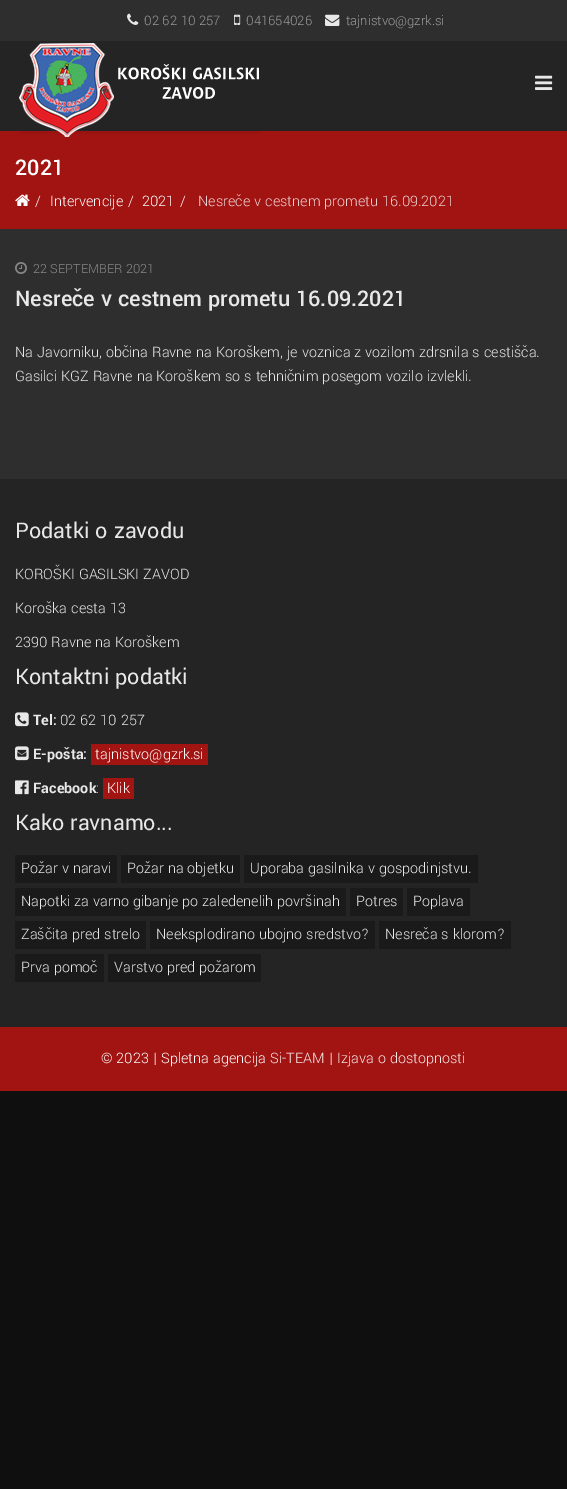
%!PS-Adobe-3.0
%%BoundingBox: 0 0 567 1489
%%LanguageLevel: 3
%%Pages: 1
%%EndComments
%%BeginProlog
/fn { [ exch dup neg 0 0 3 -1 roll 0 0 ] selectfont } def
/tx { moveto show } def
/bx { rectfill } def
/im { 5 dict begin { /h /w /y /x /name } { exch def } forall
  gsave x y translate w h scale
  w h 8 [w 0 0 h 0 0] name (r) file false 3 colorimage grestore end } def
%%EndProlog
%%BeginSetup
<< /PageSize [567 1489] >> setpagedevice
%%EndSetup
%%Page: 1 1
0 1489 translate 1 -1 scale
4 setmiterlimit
0.059 setgray
0 0 567 1489 bx
0.18 setgray
0 0 567 479 bx
(image0.raw) 127 13 12 12 im
/Yantramanav-Light 14.5 fn
0.6 setgray
(02 62 10 257) 144 25 tx
(image1.raw) 234 14 7 11 im
(041654026) 246 25 tx
(image2.raw) 325 14 15 12 im
(tajnistvo@gzrk.si) 346 25 tx
0.141 setgray
0 41 567 90 bx
0.631 0.078 0.071 setrgbcolor
0 131 567 98 bx
(image3.raw) 19 43 240 94 im
(image4.raw) 535 75 18 15 im
/Yantramanav-Medium 24 fn
1 setgray
(2021) 15 175 tx
(image5.raw) 15 194 15 12 im
/Yantramanav-Light 16 fn
(/) 35 206 tx
(Intervencije) 50 206 tx
(/) 128 206 tx
(2021) 142 206 tx
(/) 180 206 tx
0.925 0.816 0.816 setrgbcolor
(Nesreče v cestnem prometu 16.09.2021) 198 206 tx
(image6.raw) 15 262 12 12 im
/Yantramanav-Light 14 fn
0.533 setgray
(22 SEPTEMBER 2021) 33 273 tx
/Yantramanav-Medium 24 fn
0.91 setgray
(Nesreče v cestnem prometu 16.09.2021) 15 306 tx
/Yantramanav-Light 16 fn
(Na Javorniku, občina Ravne na Koroškem, je voznica z vozilom zdrsnila s cestišča.) 15 357 tx
(Gasilci KGZ Ravne na Koroškem so s tehničnim posegom vozilo izvlekli.) 15 381 tx
0.141 setgray
0 479 567 548 bx
/Yantramanav-Regular 24 fn
0.91 setgray
(Podatki o zavodu) 15 538 tx
/Yantramanav-Light 16 fn
(KOROŠKI GASILSKI ZAVOD) 15 579 tx
(Koroška cesta 13) 15 613 tx
(2390 Ravne na Koroškem) 15 647 tx
/Yantramanav-Regular 24 fn
(Kontaktni podatki) 15 684 tx
(image7.raw) 15 712 14 15 im
/Yantramanav-Bold 16 fn
(Tel:) 33 725 tx
/Yantramanav-Light 16 fn
(02 62 10 257) 60 725 tx
(image8.raw) 15 746 14 15 im
/Yantramanav-Bold 16 fn
(E-pošta:) 33 759 tx
0.631 0.078 0.071 setrgbcolor
91 744 117 21 bx
/Yantramanav-Light 16 fn
1 setgray
(tajnistvo@gzrk.si) 95 759 tx
(image9.raw) 15 780 14 15 im
/Yantramanav-Bold 16 fn
0.91 setgray
(Facebook) 33 793 tx
0.631 0.078 0.071 setrgbcolor
103 778 31 21 bx
/Yantramanav-Light 16 fn
1 setgray
(Klik) 107 793 tx
0.91 setgray
(:) 96 793 tx
/Yantramanav-Regular 24 fn
(Kako ravnamo...) 15 830 tx
0.102 setgray
15 855 102 28 bx
/Yantramanav-Light 16 fn
0.91 setgray
(Požar v naravi) 21 873 tx
0.102 setgray
121 855 119 28 bx
0.91 setgray
(Požar na objetku) 127 873 tx
0.102 setgray
244 855 234 28 bx
0.91 setgray
(Uporaba gasilnika v gospodinjstvu.) 250 873 tx
0.102 setgray
15 888 331 28 bx
0.91 setgray
(Napotki za varno gibanje po zaledenelih površinah) 21 906 tx
0.102 setgray
350 888 53 28 bx
0.91 setgray
(Potres) 356 906 tx
0.102 setgray
407 888 63 28 bx
0.91 setgray
(Poplava) 413 906 tx
0.102 setgray
15 921 131 28 bx
0.91 setgray
(Zaščita pred strelo) 21 939 tx
0.102 setgray
150 921 225 28 bx
0.91 setgray
(Neeksplodirano ubojno sredstvo?) 156 939 tx
0.102 setgray
379 921 132 28 bx
0.91 setgray
(Nesreča s klorom?) 385 939 tx
0.102 setgray
15 954 89 28 bx
0.91 setgray
(Prva pomoč) 21 972 tx
0.102 setgray
108 954 153 28 bx
0.91 setgray
(Varstvo pred požarom) 114 972 tx
0.631 0.078 0.071 setrgbcolor
0 1027 567 64 bx
1 setgray
(© 2023 | Spletna agencija) 101 1063 tx
0.965 0.91 0.906 setrgbcolor
(Si-TEAM) 270 1063 tx
1 setgray
(|) 329 1063 tx
0.965 0.91 0.906 setrgbcolor
(Izjava o dostopnosti) 337 1063 tx
showpage
%%EOF
